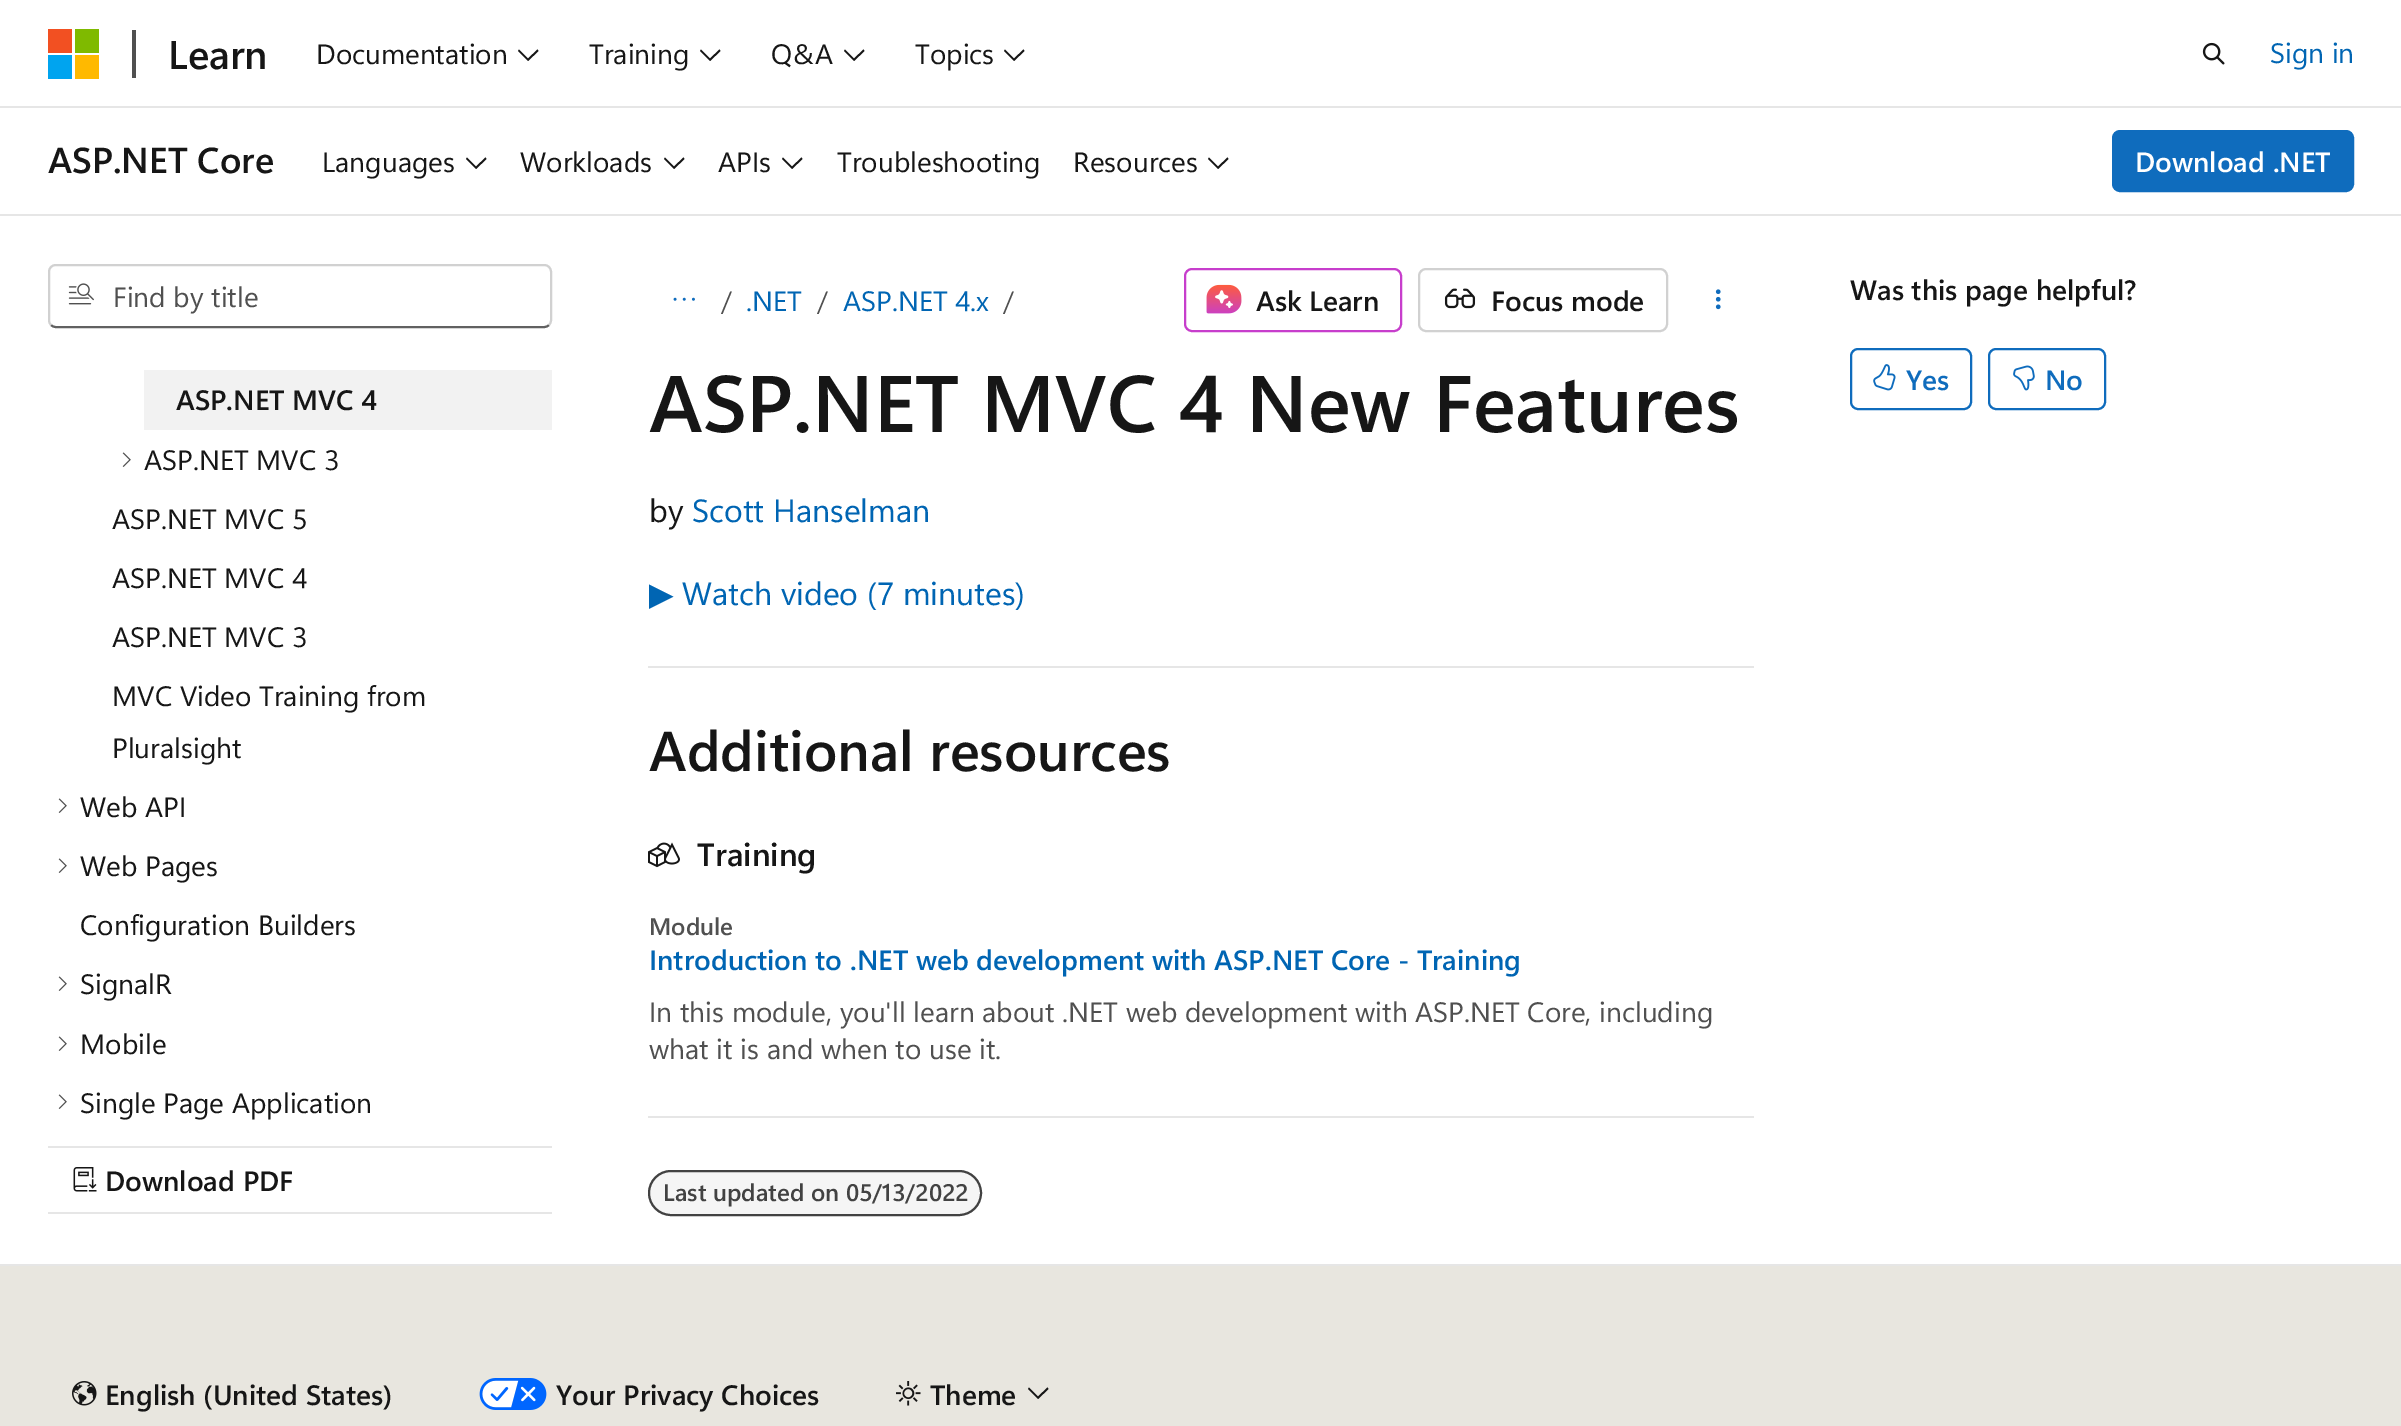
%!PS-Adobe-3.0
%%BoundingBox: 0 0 2401 1426
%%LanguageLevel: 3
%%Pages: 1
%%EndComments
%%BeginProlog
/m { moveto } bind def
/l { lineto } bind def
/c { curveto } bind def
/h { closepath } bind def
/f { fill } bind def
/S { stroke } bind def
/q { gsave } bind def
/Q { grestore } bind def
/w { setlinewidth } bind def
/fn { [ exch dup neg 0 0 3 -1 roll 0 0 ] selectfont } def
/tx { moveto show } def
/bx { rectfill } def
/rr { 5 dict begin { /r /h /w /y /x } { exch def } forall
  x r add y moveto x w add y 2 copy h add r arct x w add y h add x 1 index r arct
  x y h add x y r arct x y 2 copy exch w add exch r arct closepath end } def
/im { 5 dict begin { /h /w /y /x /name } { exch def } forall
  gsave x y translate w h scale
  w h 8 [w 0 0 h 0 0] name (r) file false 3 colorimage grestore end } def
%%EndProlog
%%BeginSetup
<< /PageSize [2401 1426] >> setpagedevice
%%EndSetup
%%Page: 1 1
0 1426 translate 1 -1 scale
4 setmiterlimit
1 setgray
0 0 2401 1426 bx
0.902 setgray
0 106 2401 2 bx
0.949 0.314 0.133 setrgbcolor
48 29 24 24 bx
0.498 0.729 0 setrgbcolor
75 29 24 24 bx
0 0.643 0.937 setrgbcolor
48 55 24 24 bx
1 0.725 0 setrgbcolor
75 55 24 24 bx
0.314 setgray
132 30 4 48 bx
/SegoeUI-SemiBold 40 fn
0.086 setgray
(Learn) 168 69 tx
/SegoeUI-Regular 28 fn
(Documentation) 316 64 tx
528 61 m 518 51 l 519 49.5 l 528 58.5 l 537.5 49.5 l 538.5 51 l h f
(Training) 589 64 tx
710 61 m 700 51 l 701 49.5 l 710 58.5 l 719.5 49.5 l 720.5 51 l h f
(Q&A) 771 64 tx
854 61 m 844 51 l 845 49.5 l 854 58.5 l 863.5 49.5 l 864.5 51 l h f
(Topics) 915 64 tx
1014 61 m 1004 51 l 1005 49.5 l 1014 58.5 l 1023.5 49.5 l 1024.5 51 l h f
(image0.raw) 2202 42 23 23 im
0 0.396 0.702 setrgbcolor
(Sign in) 2270 63 tx
0.902 setgray
0 214 2401 2 bx
/SegoeUI-SemiBold 36 fn
0.086 setgray
(ASP.NET Core) 48 173 tx
/SegoeUI-Regular 28 fn
(Languages) 322 172 tx
476 169 m 466 159 l 467 157.5 l 476 166.5 l 485.5 157.5 l 486.5 159 l h f
(Workloads) 520 172 tx
674 169 m 664 159 l 665 157.5 l 674 166.5 l 683.5 157.5 l 684.5 159 l h f
(APIs) 718 172 tx
792 169 m 782 159 l 783 157.5 l 792 166.5 l 801.5 157.5 l 802.5 159 l h f
(Troubleshooting) 837 172 tx
(Resources) 1073 172 tx
1218 169 m 1208 159 l 1209 157.5 l 1218 166.5 l 1227.5 157.5 l 1228.5 159 l h f
0.059 0.424 0.741 setrgbcolor
2113 131 240 60 7 rr q f Q
2 w
S
/SegoeUI-SemiBold 28 fn
1 setgray
(Download .NET) 2135 172 tx
0.38 setgray
549 325 m 547.5 326.5 546 327 544 327 c 56 327 l 54 327 52.5 326.5 51 325 c S
0.82 setgray
51 325 m 49.5 323.5 49 322 49 320 c 49 272 l 49 270 49.5 268.5 51 267 c 52.5 265.5 54 265 56 265 c 544 265 l 546 265 547.5 265.5 549 267 c 550.5 268.5 551 270 551 272 c 551 320 l 551 322 550.5 323.5 549 325 c S
(image1.raw) 68 283 26 22 im
/SegoeUI-Regular 28 fn
0.314 setgray
(Find by title) 113 307 tx
0.949 setgray
144 370 408 60 bx
/SegoeUI-SemiBold 28 fn
0.086 setgray
(ASP.NET MVC 4) 176 410 tx
(image2.raw) 122 452 9 15 im
/SegoeUI-Regular 28 fn
(ASP.NET MVC 3) 144 470 tx
(ASP.NET MVC 5) 112 529 tx
(ASP.NET MVC 4) 112 588 tx
(ASP.NET MVC 3) 112 647 tx
(MVC Video Training from) 112 706 tx
(Pluralsight) 112 758 tx
(image2.raw) 58 798 9 15 im
(Web API) 80 817 tx
(image2.raw) 58 858 9 15 im
(Web Pages) 80 876 tx
(Configuration Builders) 80 935 tx
(image2.raw) 58 976 9 15 im
(SignalR) 80 994 tx
(image2.raw) 58 1036 9 15 im
(Mobile) 80 1054 tx
(image2.raw) 58 1094 9 15 im
(Single Page Application) 80 1113 tx
0.902 setgray
48 1146 504 2 bx
48 1212 504 2 bx
(image3.raw) 73 1167 24 25 im
/SegoeUI-SemiBold 28 fn
0.086 setgray
(Download PDF) 105 1191 tx
(image4.raw) 673 297 22 4 im
/SegoeUI-Regular 28 fn
0.314 setgray
(/) 721 311 tx
0 0.396 0.702 setrgbcolor
(.NET) 746 311 tx
0.314 setgray
(/) 817 311 tx
0 0.396 0.702 setrgbcolor
(ASP.NET 4.x) 843 311 tx
0.314 setgray
(/) 1003 311 tx
0.78 0.243 0.8 setrgbcolor
1185 269 216 62 7 rr S
(image5.raw) 1206 284 36 30 im
/SegoeUI-SemiBold 28 fn
0.086 setgray
(Ask Learn) 1256 311 tx
0.82 setgray
1419 269 248 62 7 rr S
(image6.raw) 1444 288 32 21 im
0.086 setgray
(Focus mode) 1491 311 tx
(image7.raw) 1715 289 6 21 im
/SegoeUI-SemiBold 80 fn
(ASP.NET MVC 4 New Features) 649 432 tx
/SegoeUI-Regular 32 fn
(by) 649 522 tx
0 0.396 0.702 setrgbcolor
(Scott Hanselman) 692 522 tx
/DejaVuSans-Regular 32 fn
(▶) 649 605 tx
/SegoeUI-Regular 32 fn
(Watch video \(7 minutes\)) 682 605 tx
0.902 setgray
648 666 1106 2 bx
/SegoeUI-SemiBold 56 fn
0.086 setgray
(Additional resources) 649 771 tx
(image8.raw) 648 842 32 26 im
/SegoeUI-SemiBold 32 fn
(Training) 697 866 tx
/SegoeUI-SemiBold 24 fn
0.314 setgray
(Module) 649 935 tx
/SegoeUI-SemiBold 28 fn
0 0.396 0.702 setrgbcolor
(Introduction to .NET web development with ASP.NET Core - Training) 649 970 tx
/SegoeUI-Regular 28 fn
0.314 setgray
(In this module, you'll learn about .NET web development with ASP.NET Core, including) 649 1022 tx
(what it is and when to use it.) 649 1059 tx
0.902 setgray
648 1116 1106 2 bx
0.961 setgray
649 1171 332 44 22 rr q f Q
0.259 setgray
S
/SegoeUI-SemiBold 24 fn
(Last updated on 05/13/2022) 663 1201 tx
/SegoeUI-SemiBold 28 fn
0.086 setgray
(Was this page helpful?) 1850 300 tx
0.059 0.424 0.741 setrgbcolor
1851 349 120 60 7 rr S
(image9.raw) 1873 364 23 27 im
(Yes) 1906 390 tx
1989 349 116 60 7 rr S
(image10.raw) 2013 365 22 26 im
(No) 2045 390 tx
0.91 0.902 0.875 setrgbcolor
0 1266 2401 160 bx
0.902 setgray
0 1264 2401 2 bx
(image11.raw) 72 1381 25 25 im
0.086 setgray
(English \(United States\)) 105 1405 tx
(image12.raw) 479 1378 68 32 im
(Your Privacy Choices) 556 1405 tx
(image13.raw) 896 1381 25 25 im
(Theme) 930 1405 tx
1038 1399 m 1028 1389 l 1029 1387.5 l 1038 1396.5 l 1047.5 1387.5 l 1048.5 1389 l h f
showpage
%%EOF
